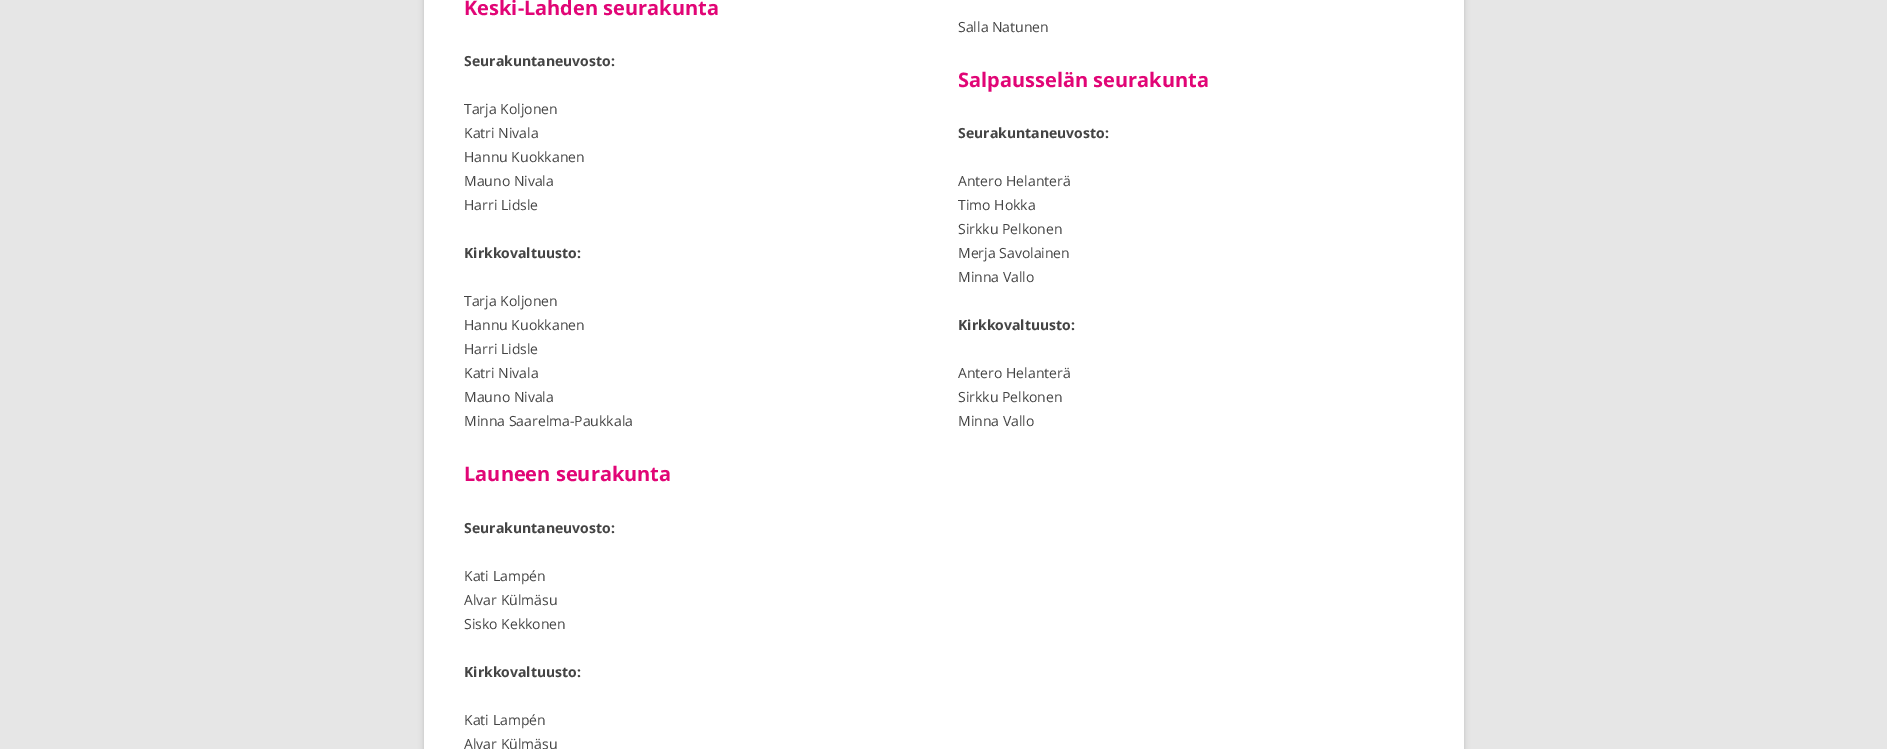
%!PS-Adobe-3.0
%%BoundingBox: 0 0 1887 749
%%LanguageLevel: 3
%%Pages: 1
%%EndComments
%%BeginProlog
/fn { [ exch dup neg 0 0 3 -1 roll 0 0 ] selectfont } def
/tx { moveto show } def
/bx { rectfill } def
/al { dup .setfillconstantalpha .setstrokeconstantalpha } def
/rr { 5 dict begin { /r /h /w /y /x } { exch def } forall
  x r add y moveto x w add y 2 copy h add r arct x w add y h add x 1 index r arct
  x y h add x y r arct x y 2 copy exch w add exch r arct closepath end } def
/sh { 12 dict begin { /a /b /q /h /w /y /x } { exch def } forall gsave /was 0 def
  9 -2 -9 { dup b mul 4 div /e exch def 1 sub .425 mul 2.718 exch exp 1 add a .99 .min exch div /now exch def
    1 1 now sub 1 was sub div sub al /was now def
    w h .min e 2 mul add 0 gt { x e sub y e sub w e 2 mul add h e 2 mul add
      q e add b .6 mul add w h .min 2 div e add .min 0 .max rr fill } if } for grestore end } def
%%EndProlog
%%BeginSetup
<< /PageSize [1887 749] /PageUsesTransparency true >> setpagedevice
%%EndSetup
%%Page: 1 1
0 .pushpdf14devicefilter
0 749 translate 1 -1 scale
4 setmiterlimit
0.902 setgray
0 0 1887 749 bx
0.392 setgray
424 -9 1040 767 0 3 0.3 sh
1 setgray
424 0 1040 749 bx
/OpenSans-Bold 20 fn
0.882 0.02 0.463 setrgbcolor
(Keski-Lahden seurakunta) 464 15 tx
/OpenSans-Bold 14 fn
0.267 setgray
(Seurakuntaneuvosto:) 464 66 tx
/OpenSans-Regular 14 fn
(Tarja Koljonen) 464 114 tx
(Katri Nivala) 464 138 tx
(Hannu Kuokkanen) 464 162 tx
(Mauno Nivala) 464 186 tx
(Harri Lidsle) 464 210 tx
/OpenSans-Bold 14 fn
(Kirkkovaltuusto:) 464 258 tx
/OpenSans-Regular 14 fn
(Tarja Koljonen) 464 306 tx
(Hannu Kuokkanen) 464 330 tx
(Harri Lidsle) 464 354 tx
(Katri Nivala) 464 378 tx
(Mauno Nivala) 464 402 tx
(Minna Saarelma-Paukkala) 464 426 tx
/OpenSans-Bold 20 fn
0.882 0.02 0.463 setrgbcolor
(Launeen seurakunta) 464 481 tx
/OpenSans-Bold 14 fn
0.267 setgray
(Seurakuntaneuvosto:) 464 533 tx
/OpenSans-Regular 14 fn
(Kati Lampén) 464 581 tx
(Alvar Külmäsu) 464 605 tx
(Sisko Kekkonen) 464 629 tx
/OpenSans-Bold 14 fn
(Kirkkovaltuusto:) 464 677 tx
/OpenSans-Regular 14 fn
(Kati Lampén) 464 725 tx
(Alvar Külmäsu) 464 749 tx
(Salla Natunen) 958 32 tx
/OpenSans-Bold 20 fn
0.882 0.02 0.463 setrgbcolor
(Salpausselän seurakunta) 958 87 tx
/OpenSans-Bold 14 fn
0.267 setgray
(Seurakuntaneuvosto:) 958 138 tx
/OpenSans-Regular 14 fn
(Antero Helanterä) 958 186 tx
(Timo Hokka) 958 210 tx
(Sirkku Pelkonen) 958 234 tx
(Merja Savolainen) 958 258 tx
(Minna Vallo) 958 282 tx
/OpenSans-Bold 14 fn
(Kirkkovaltuusto:) 958 330 tx
/OpenSans-Regular 14 fn
(Antero Helanterä) 958 378 tx
(Sirkku Pelkonen) 958 402 tx
(Minna Vallo) 958 426 tx
.poppdf14devicefilter showpage
%%EOF
